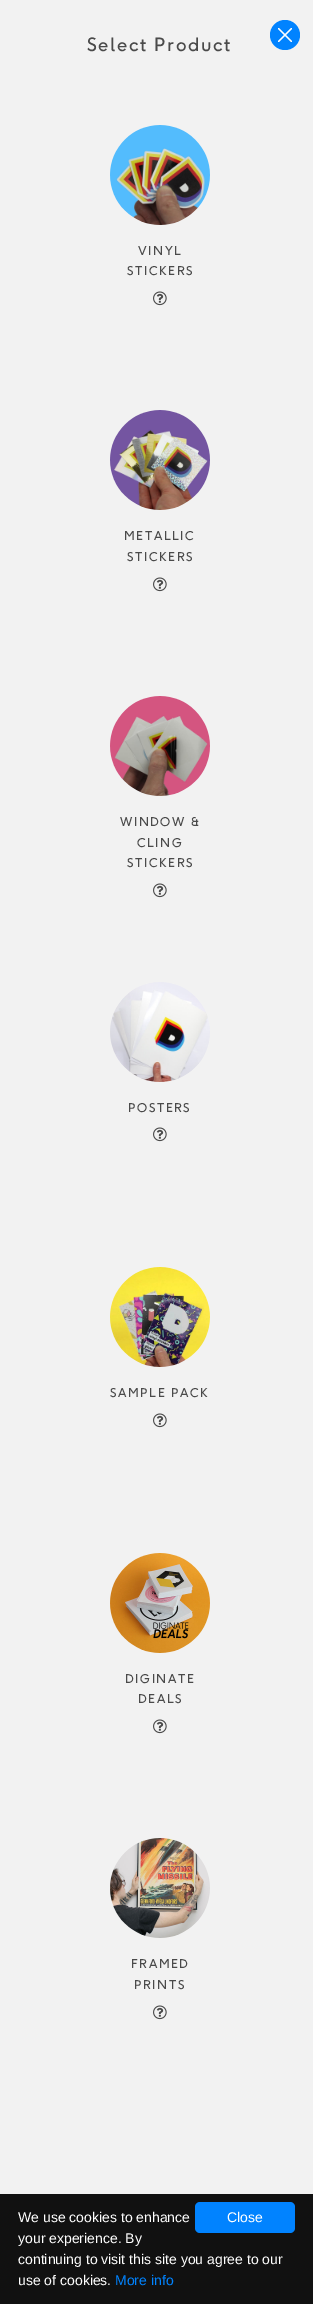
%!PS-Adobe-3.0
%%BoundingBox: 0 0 313 2304
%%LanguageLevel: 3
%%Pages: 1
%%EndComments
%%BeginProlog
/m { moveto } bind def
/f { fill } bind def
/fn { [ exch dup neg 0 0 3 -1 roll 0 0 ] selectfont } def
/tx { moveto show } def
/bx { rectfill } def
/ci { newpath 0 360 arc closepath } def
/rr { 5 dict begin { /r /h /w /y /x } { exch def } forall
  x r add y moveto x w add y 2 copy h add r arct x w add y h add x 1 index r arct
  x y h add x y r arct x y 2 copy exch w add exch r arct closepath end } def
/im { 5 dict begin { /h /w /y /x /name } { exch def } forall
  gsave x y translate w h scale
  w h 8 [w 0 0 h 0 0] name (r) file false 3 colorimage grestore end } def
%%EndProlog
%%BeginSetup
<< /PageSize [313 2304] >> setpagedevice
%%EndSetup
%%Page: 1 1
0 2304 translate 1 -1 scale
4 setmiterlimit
0.949 setgray
0 0 313 2304 bx
/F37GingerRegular-Regular 18.25 fn
0.29 setgray
87 51 m 1.6 0 (Select Product) ashow
(image0.raw) 110 125 100 100 im
/F37GingerRegular-Regular 12 fn
138 255 m 1.6 0 (VINYL) ashow
127 275 m 1.6 0 (STICKERS) ashow
(image1.raw) 153 291 14 15 im
(image2.raw) 110 410 100 100 im
124 540 m 1.6 0 (METALLIC) ashow
127 561 m 1.6 0 (STICKERS) ashow
(image1.raw) 153 577 14 15 im
(image3.raw) 110 696 100 100 im
120 826 m 1.6 0 (WINDOW &) ashow
137 847 m 1.6 0 (CLING) ashow
127 867 m 1.6 0 (STICKERS) ashow
(image1.raw) 153 883 14 15 im
(image4.raw) 110 982 100 100 im
128 1112 m 1.6 0 (POSTERS) ashow
(image1.raw) 153 1127 14 15 im
(image5.raw) 110 1267 100 100 im
110 1397 m 1.6 0 (SAMPLE PACK) ashow
(image1.raw) 153 1413 14 15 im
(image6.raw) 110 1553 100 100 im
125 1683 m 1.6 0 (DIGINATE) ashow
138 1703 m 1.6 0 (DEALS) ashow
(image1.raw) 153 1719 14 15 im
(image7.raw) 110 1838 100 100 im
131 1968 m 1.6 0 (FRAMED) ashow
134 1989 m 1.6 0 (PRINTS) ashow
(image1.raw) 153 2005 14 15 im
0.004 0.514 1 setrgbcolor
285 35 15 ci f
(image8.raw) 278 28 14 14 im
0.067 setgray
0 2194 313 110 bx
/LiberationSans-Regular 14 fn
1 setgray
(We use cookies to enhance) 18 2222 tx
(your experience. By) 18 2243 tx
(continuing to visit this site you agree to our) 18 2264 tx
(use of cookies.) 18 2285 tx
0.004 0.514 1 setrgbcolor
(More info) 115 2285 tx
195 2202 100 31 5 rr f
1 setgray
(Close) 227 2222 tx
showpage
%%EOF
